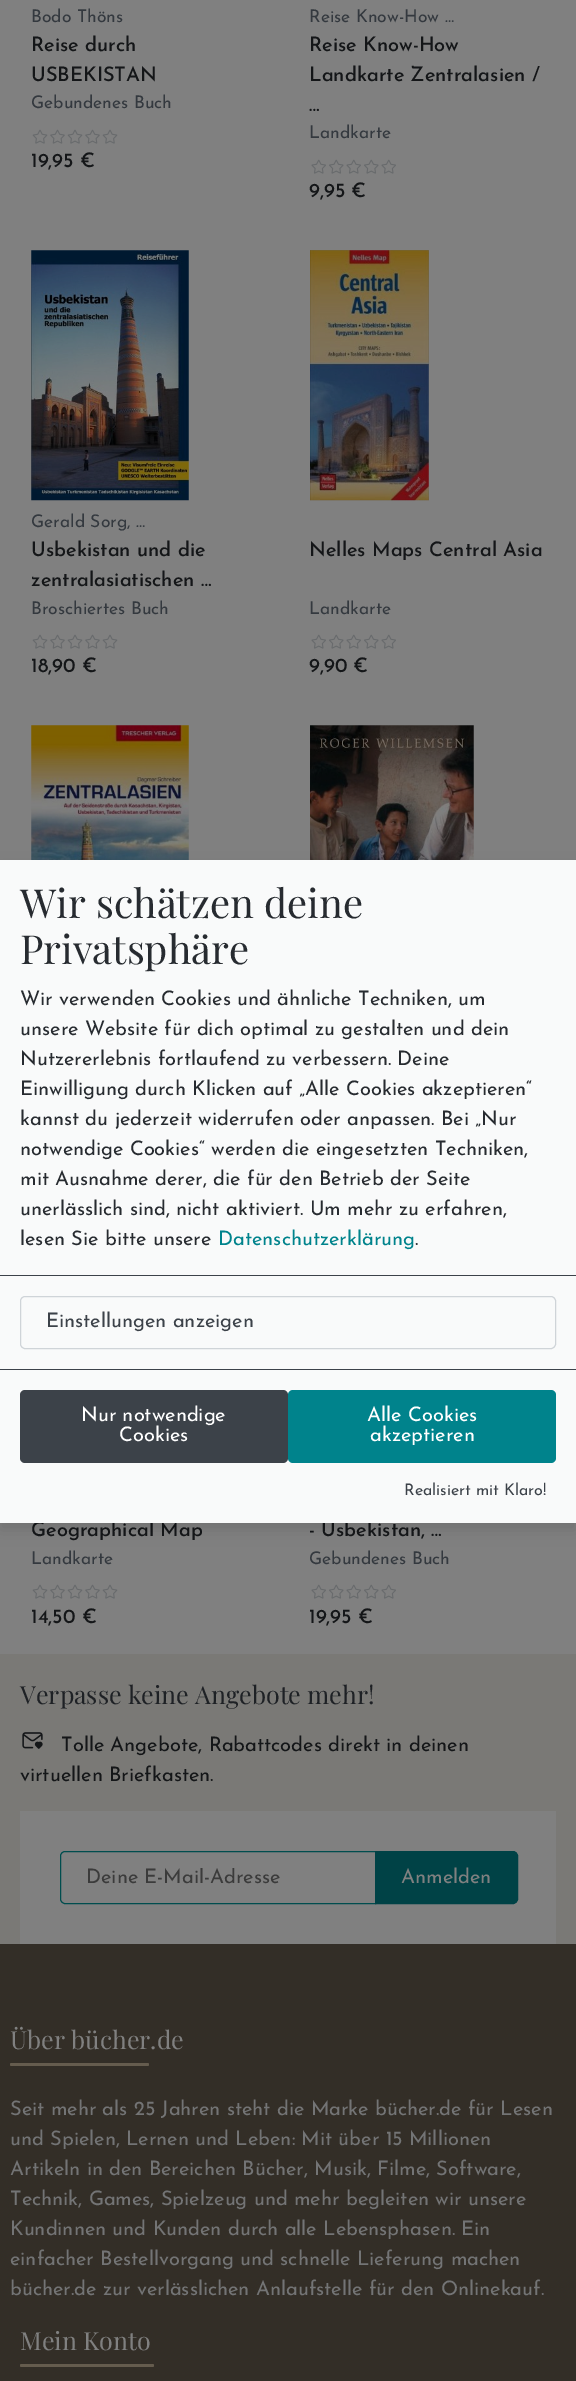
%!PS-Adobe-3.0
%%BoundingBox: 0 0 576 2381
%%LanguageLevel: 3
%%Pages: 1
%%EndComments
%%BeginProlog
/m { moveto } bind def
/l { lineto } bind def
/c { curveto } bind def
/h { closepath } bind def
/f { fill } bind def
/S { stroke } bind def
/q { gsave } bind def
/Q { grestore } bind def
/fn { [ exch dup neg 0 0 3 -1 roll 0 0 ] selectfont } def
/tx { moveto show } def
/bx { rectfill } def
/al { dup .setfillconstantalpha .setstrokeconstantalpha } def
/rr { 5 dict begin { /r /h /w /y /x } { exch def } forall
  x r add y moveto x w add y 2 copy h add r arct x w add y h add x 1 index r arct
  x y h add x y r arct x y 2 copy exch w add exch r arct closepath end } def
/sh { 12 dict begin { /a /b /q /h /w /y /x } { exch def } forall gsave /was 0 def
  9 -2 -9 { dup b mul 4 div /e exch def 1 sub .425 mul 2.718 exch exp 1 add a .99 .min exch div /now exch def
    1 1 now sub 1 was sub div sub al /was now def
    w h .min e 2 mul add 0 gt { x e sub y e sub w e 2 mul add h e 2 mul add
      q e add b .6 mul add w h .min 2 div e add .min 0 .max rr fill } if } for grestore end } def
/im { 5 dict begin { /h /w /y /x /name } { exch def } forall
  gsave x y translate w h scale
  w h 8 [w 0 0 h 0 0] name (r) file false 3 colorimage grestore end } def
%%EndProlog
%%BeginSetup
<< /PageSize [576 2381] /PageUsesTransparency true >> setpagedevice
%%EndSetup
%%Page: 1 1
0 .pushpdf14devicefilter
0 2381 translate 1 -1 scale
4 setmiterlimit
0.502 setgray
0 0 576 2381 bx
/JosefinSans-Thin 17.5 fn
0.204 0.224 0.247 setrgbcolor
(Bodo Thöns) 31 22 tx
/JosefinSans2-Thin 20 fn
0.078 0.086 0.094 setrgbcolor
(Reise durch) 31 51 tx
(USBEKISTAN) 31 81 tx
/JosefinSans-Thin 17.5 fn
0.204 0.224 0.247 setrgbcolor
(Gebundenes Buch) 31 108 tx
(image0.raw) 32 129 16 15 im
(image1.raw) 50 129 15 15 im
(image0.raw) 67 129 16 15 im
(image1.raw) 85 129 15 15 im
(image0.raw) 102 129 16 15 im
/JosefinSans2-Thin 20 fn
0.078 0.086 0.094 setrgbcolor
(19,95 €) 31 167 tx
/JosefinSans-Thin 17.5 fn
0.204 0.224 0.247 setrgbcolor
(Reise Know-How …) 309 22 tx
/JosefinSans2-Thin 20 fn
0.078 0.086 0.094 setrgbcolor
(Reise Know-How) 309 51 tx
(Landkarte Zentralasien /) 309 81 tx
(…) 309 111 tx
/JosefinSans-Thin 17.5 fn
0.204 0.224 0.247 setrgbcolor
(Landkarte) 309 138 tx
(image2.raw) 311 159 15 15 im
(image3.raw) 329 159 15 15 im
(image2.raw) 346 159 15 15 im
(image3.raw) 364 159 15 15 im
(image2.raw) 381 159 15 15 im
/JosefinSans2-Thin 20 fn
0.078 0.086 0.094 setrgbcolor
(9,95 €) 309 197 tx
(image4.raw) 31 250 158 251 im
/JosefinSans-Thin 17.5 fn
0.204 0.224 0.247 setrgbcolor
(Gerald Sorg, …) 31 527 tx
/JosefinSans2-Thin 20 fn
0.078 0.086 0.094 setrgbcolor
(Usbekistan und die) 31 556 tx
(zentralasiatischen …) 31 586 tx
/JosefinSans-Thin 17.5 fn
0.204 0.224 0.247 setrgbcolor
(Broschiertes Buch) 31 614 tx
(image0.raw) 32 634 16 15 im
(image1.raw) 50 634 15 15 im
(image0.raw) 67 634 16 15 im
(image1.raw) 85 634 15 15 im
(image0.raw) 102 634 16 15 im
/JosefinSans2-Thin 20 fn
0.078 0.086 0.094 setrgbcolor
(18,90 €) 31 672 tx
(image5.raw) 310 250 119 251 im
(Nelles Maps Central Asia) 309 556 tx
/JosefinSans-Thin 17.5 fn
0.204 0.224 0.247 setrgbcolor
(Landkarte) 309 614 tx
(image2.raw) 311 634 15 15 im
(image3.raw) 329 634 15 15 im
(image2.raw) 346 634 15 15 im
(image3.raw) 364 634 15 15 im
(image2.raw) 381 634 15 15 im
/JosefinSans2-Thin 20 fn
0.078 0.086 0.094 setrgbcolor
(9,90 €) 309 672 tx
(image6.raw) 31 725 158 135 im
(image7.raw) 310 725 164 135 im
(Geographical Map) 31 1536 tx
/JosefinSans-Thin 17.5 fn
0.204 0.224 0.247 setrgbcolor
(Landkarte) 31 1564 tx
(image0.raw) 32 1584 16 15 im
(image1.raw) 50 1584 15 15 im
(image0.raw) 67 1584 16 15 im
(image1.raw) 85 1584 15 15 im
(image0.raw) 102 1584 16 15 im
/JosefinSans2-Thin 20 fn
0.078 0.086 0.094 setrgbcolor
(14,50 €) 31 1623 tx
(- Usbekistan, …) 309 1536 tx
/JosefinSans-Thin 17.5 fn
0.204 0.224 0.247 setrgbcolor
(Gebundenes Buch) 309 1564 tx
(image2.raw) 311 1584 15 15 im
(image3.raw) 329 1584 15 15 im
(image2.raw) 346 1584 15 15 im
(image3.raw) 364 1584 15 15 im
(image2.raw) 381 1584 15 15 im
/JosefinSans2-Thin 20 fn
0.078 0.086 0.094 setrgbcolor
(19,95 €) 309 1623 tx
0 setgray
0 868 576 662 0 7.5 0.13 sh
0.976 0.98 0.98 setrgbcolor
0 860 576 663 bx
0.235 0.259 0.286 setrgbcolor
0 1275 576 1 bx
/PlayfairDisplay-Regular 40 fn
0.153 0.169 0.188 setrgbcolor
(Wir schätzen deine) 20 918 tx
(Privatsphäre) 20 964 tx
/JosefinSans-Thin 20 fn
(Wir verwenden Cookies und ähnliche Techniken, um) 20 1005 tx
(unsere Website für dich optimal zu gestalten und dein) 20 1035 tx
(Nutzererlebnis fortlaufend zu verbessern. Deine) 20 1065 tx
(Einwilligung durch Klicken auf „Alle Cookies akzeptieren“) 20 1095 tx
(kannst du jederzeit widerrufen oder anpassen. Bei „Nur) 20 1125 tx
(notwendige Cookies“ werden die eingesetzten Techniken,) 20 1155 tx
(mit Ausnahme derer, die für den Betrieb der Seite) 20 1185 tx
(unerlässlich sind, nicht aktiviert. Um mehr zu erfahren,) 20 1215 tx
(lesen Sie bitte unsere) 20 1245 tx
0 0.514 0.549 setrgbcolor
(Datenschutzerklärung) 218 1245 tx
0.153 0.169 0.188 setrgbcolor
(.) 415 1245 tx
0.812 0.831 0.847 setrgbcolor
20.5 1296.5 535 52 4.5 rr S
0.235 0.259 0.286 setrgbcolor
(Einstellungen anzeigen) 46 1327 tx
0 1369 576 1 bx
20 1390 268 73 5 rr f
1 setgray
(Nur notwendige) 81 1421 tx
(Cookies) 119 1441 tx
0 0.514 0.549 setrgbcolor
288 1390 268 73 5 rr f
1 setgray
(Alle Cookies) 367 1421 tx
(akzeptieren) 370 1441 tx
/JosefinSans-Thin 16 fn
0.235 0.259 0.286 setrgbcolor
(Realisiert mit Klaro!) 404 1495 tx
0.478 0.475 0.463 setrgbcolor
0 1654 576 290 bx
/PlayfairDisplay-Regular 25 fn
0.118 0.129 0.145 setrgbcolor
(Verpasse keine Angebote mehr!) 20 1704 tx
(image8.raw) 22 1732 21 17 im
/JosefinSans-Thin 20 fn
0.078 0.086 0.094 setrgbcolor
(Tolle Angebote, Rabattcodes direkt in deinen) 61 1751 tx
(virtuellen Briefkasten.) 20 1781 tx
0.502 setgray
20 1811 536 133 bx
0 0.302 0.306 setrgbcolor
65 1851.5 m 375.5 1851.5 l 375.5 1903.5 l 65 1903.5 l 62.5 1903.5 60.5 1901.5 60.5 1899 c 60.5 1856 l 60.5 1853.5 62.5 1851.5 65 1851.5 c h S
q
86 1868 264 20 rectclip
0.231 setgray
(Deine E-Mail-Adresse) 86 1883 tx
Q
0 0.259 0.275 setrgbcolor
375.5 1851.5 m 513 1851.5 l 515.5 1851.5 517.5 1853.5 517.5 1856 c 517.5 1899 l 517.5 1901.5 515.5 1903.5 513 1903.5 c 375.5 1903.5 l h q f Q
S
0.502 setgray
(Anmelden) 401 1883 tx
0.2 0.18 0.153 setrgbcolor
0 1944 576 437 bx
/PlayfairDisplay-Regular 25 fn
0.502 setgray
(Über bücher.de) 10 2049 tx
0.396 0.361 0.306 setrgbcolor
10 2063 139 3 1.5 rr f
/JosefinSans-Thin 20 fn
0.451 0.455 0.459 setrgbcolor
(Seit mehr als 25 Jahren steht die Marke bücher.de für Lesen) 10 2115 tx
(und Spielen, Lernen und Leben: Mit über 15 Millionen) 10 2145 tx
(Artikeln in den Bereichen Bücher, Musik, Filme, Software,) 10 2175 tx
(Technik, Games, Spielzeug und mehr begleiten wir unsere) 10 2205 tx
(Kundinnen und Kunden durch alle Lebensphasen. Ein) 10 2235 tx
(einfacher Bestellvorgang und schnelle Lieferung machen) 10 2265 tx
(bücher.de zur verlässlichen Anlaufstelle für den Onlinekauf.) 10 2295 tx
/PlayfairDisplay-Regular 25 fn
0.502 setgray
(Mein Konto) 20 2350 tx
0.396 0.361 0.306 setrgbcolor
20 2364 134 3 1.5 rr f
.poppdf14devicefilter showpage
%%EOF
